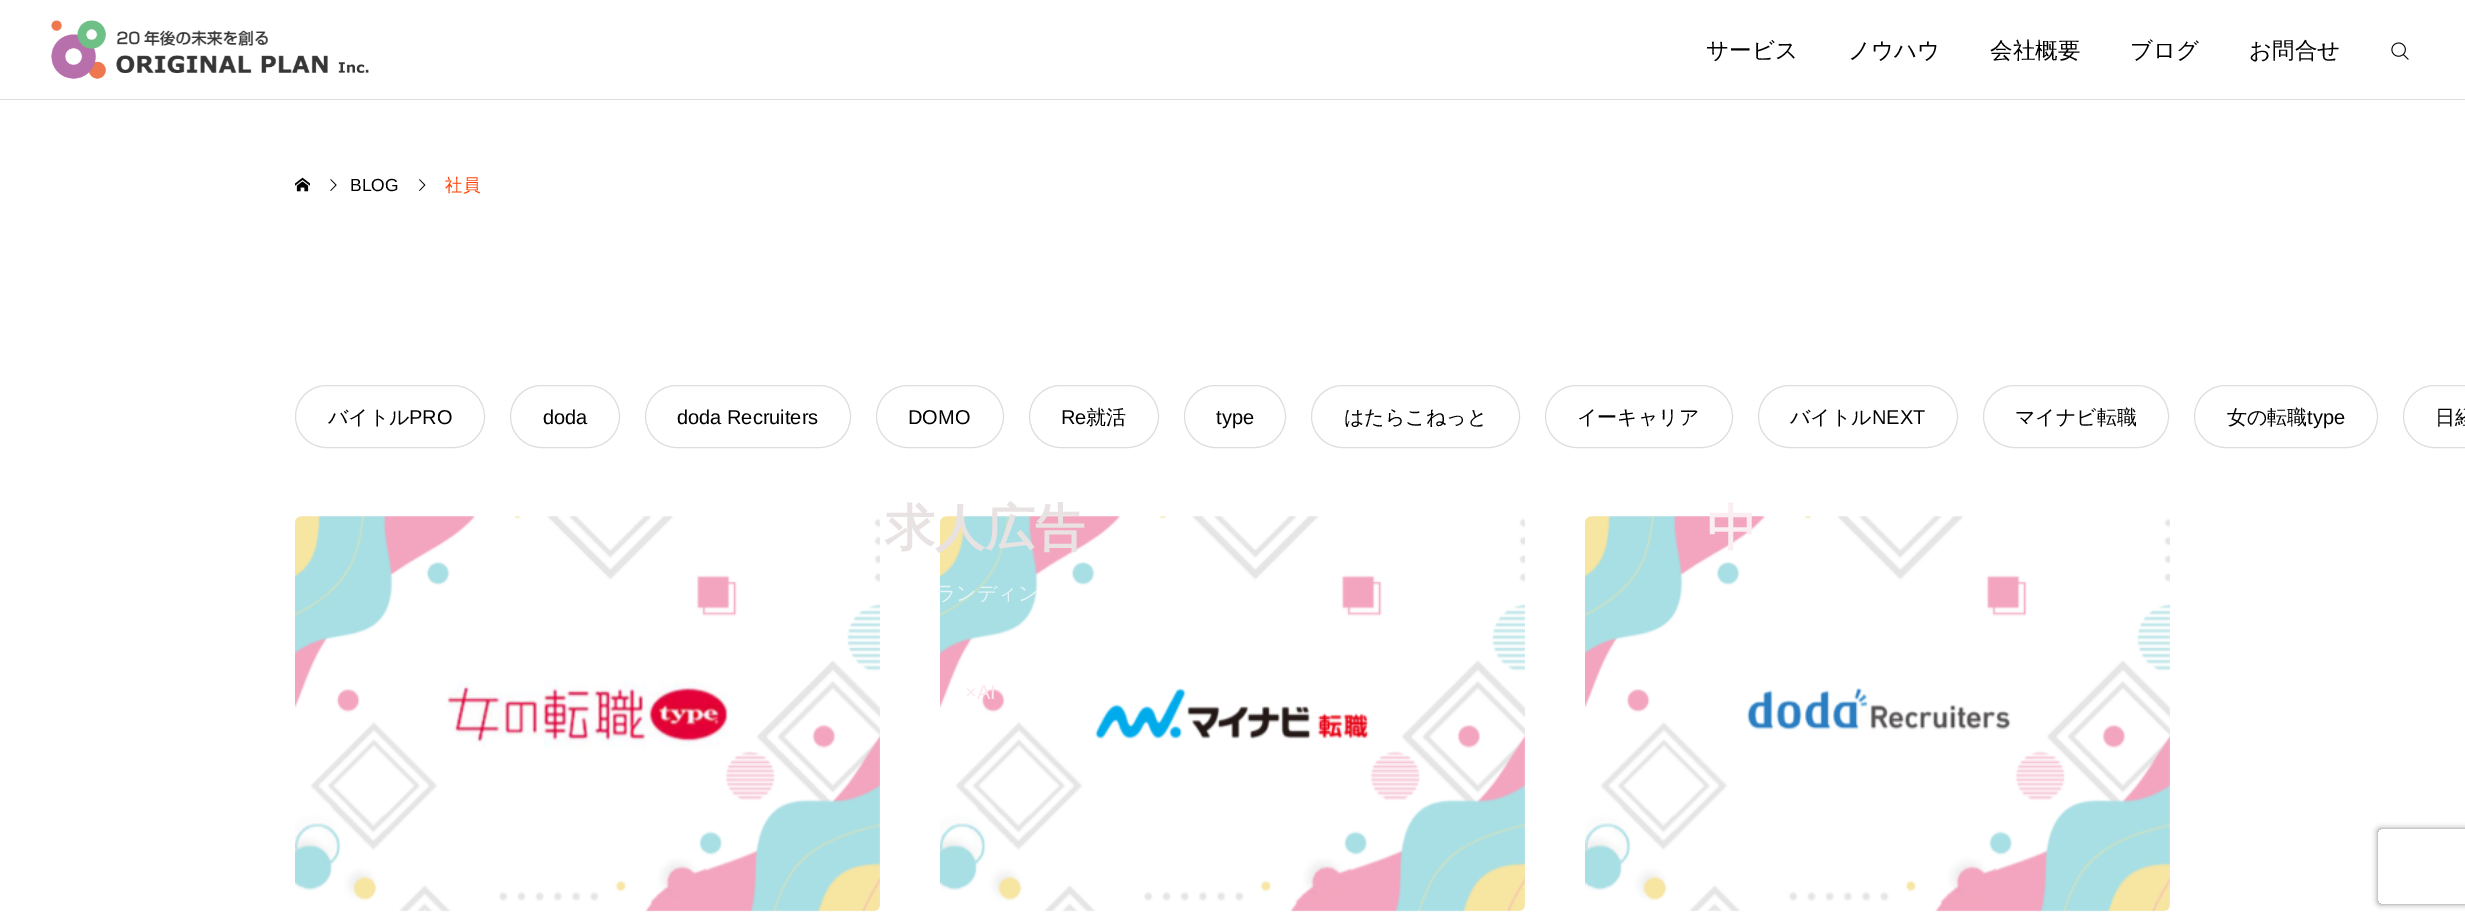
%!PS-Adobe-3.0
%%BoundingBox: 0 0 2465 921
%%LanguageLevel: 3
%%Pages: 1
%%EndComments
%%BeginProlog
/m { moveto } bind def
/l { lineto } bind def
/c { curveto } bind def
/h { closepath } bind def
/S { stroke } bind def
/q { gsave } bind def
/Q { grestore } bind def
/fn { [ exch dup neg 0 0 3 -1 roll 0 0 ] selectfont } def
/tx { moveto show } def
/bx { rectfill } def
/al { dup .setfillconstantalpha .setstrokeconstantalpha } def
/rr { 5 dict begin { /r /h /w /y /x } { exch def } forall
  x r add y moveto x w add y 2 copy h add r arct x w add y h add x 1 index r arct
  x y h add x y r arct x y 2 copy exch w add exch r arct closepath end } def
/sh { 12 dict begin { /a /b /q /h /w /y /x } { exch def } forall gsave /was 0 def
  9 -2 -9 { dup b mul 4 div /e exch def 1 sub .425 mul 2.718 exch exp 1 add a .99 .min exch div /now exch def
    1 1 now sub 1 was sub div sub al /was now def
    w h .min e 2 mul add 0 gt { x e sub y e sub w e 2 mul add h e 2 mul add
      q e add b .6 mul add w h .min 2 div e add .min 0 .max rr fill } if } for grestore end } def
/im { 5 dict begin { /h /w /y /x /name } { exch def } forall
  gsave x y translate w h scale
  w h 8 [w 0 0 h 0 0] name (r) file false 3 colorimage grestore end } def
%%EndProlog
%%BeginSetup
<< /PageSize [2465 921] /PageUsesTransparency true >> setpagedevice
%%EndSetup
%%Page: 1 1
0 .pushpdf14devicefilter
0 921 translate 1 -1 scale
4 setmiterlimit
1 setgray
0 0 2465 921 bx
0.867 setgray
0 99 2465 1 bx
(image0.raw) 51 20 318 59 im
/WenQuanYiZenHei-Medium 22.5 fn
0 setgray
(サービス) 1706 58 tx
(ノウハウ) 1848 58 tx
(会社概要) 1990 58 tx
(ブログ) 2130 58 tx
(お問合せ) 2249 58 tx
(image1.raw) 2391 42 18 18 im
(image6.raw) 940 516 585 396 im
/WenQuanYiZenHei-Bold 50 fn
0.91 0.886 0.89 setrgbcolor
(求人広告) 885 545 tx
/WenQuanYiZenHei-Medium 20 fn
0.898 0.961 0.965 setrgbcolor
(ランディン) 936 600 tx
/LiberationSans-Regular 20 fn
0.988 0.906 0.933 setrgbcolor
(×AI) 965 699 tx
(image7.raw) 1585 516 585 396 im
/WenQuanYiZenHei-Bold 50 fn
0.984 0.933 0.949 setrgbcolor
(中) 1707 545 tx
(image2.raw) 295 177 15 15 im
(image3.raw) 330 179 7 12 im
/LiberationSans-Regular 17.5 fn
0 setgray
(BLOG) 350 191 tx
(image4.raw) 419 179 7 12 im
/WenQuanYiZenHei-Medium 17.5 fn
1 0.251 0 setrgbcolor
(社員) 445 191 tx
0.867 setgray
295.5 385.5 189 62 31 rr S
/WenQuanYiZenHei-Medium 20 fn
0 setgray
(バイトル) 328 424 tx
/LiberationSans-Regular 20 fn
(PRO) 409 424 tx
0.867 setgray
510.5 385.5 109 62 31 rr S
0 setgray
(doda) 543 424 tx
0.867 setgray
645.5 385.5 205 62 31 rr S
0 setgray
(doda Recruiters) 677 424 tx
0.867 setgray
876.5 385.5 127 62 31 rr S
0 setgray
(DOMO) 908 424 tx
0.867 setgray
1029.5 385.5 129 62 31 rr S
0 setgray
(Re) 1061 424 tx
/WenQuanYiZenHei-Medium 20 fn
(就活) 1086 424 tx
0.867 setgray
1184.5 385.5 101 62 31 rr S
/LiberationSans-Regular 20 fn
0 setgray
(type) 1216 424 tx
0.867 setgray
1311.5 385.5 208 62 31 rr S
/WenQuanYiZenHei-Medium 20 fn
0 setgray
(はたらこねっと) 1344 424 tx
0.867 setgray
1545.5 385.5 187 62 31 rr S
0 setgray
(イーキャリア) 1577 424 tx
0.867 setgray
1758.5 385.5 199 62 31 rr S
0 setgray
(バイトル) 1790 424 tx
/LiberationSans-Regular 20 fn
(NEXT) 1872 424 tx
0.867 setgray
1983.5 385.5 185 62 31 rr S
/WenQuanYiZenHei-Medium 20 fn
0 setgray
(マイナビ転職) 2015 424 tx
0.867 setgray
2194.5 385.5 183 62 31 rr S
0 setgray
(女の転職) 2227 424 tx
/LiberationSans-Regular 20 fn
(type) 2307 424 tx
0.867 setgray
2403.5 385.5 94 62 31 rr S
/WenQuanYiZenHei-Medium 20 fn
0 setgray
(日経) 2435 424 tx
(image5.raw) 295 516 585 396 im
q
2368 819 m 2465 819 l 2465 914 l 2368 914 l h 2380.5 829 m 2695.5 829 l 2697 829 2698 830 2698 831.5 c 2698 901.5 l 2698 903 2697 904 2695.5 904 c 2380.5 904 l 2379 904 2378 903 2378 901.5 c 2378 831.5 l 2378 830 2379 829 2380.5 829 c h eoclip newpath
0.502 setgray
2378 829 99 75 2.5 3 1 sh
Q
.poppdf14devicefilter showpage
%%EOF
